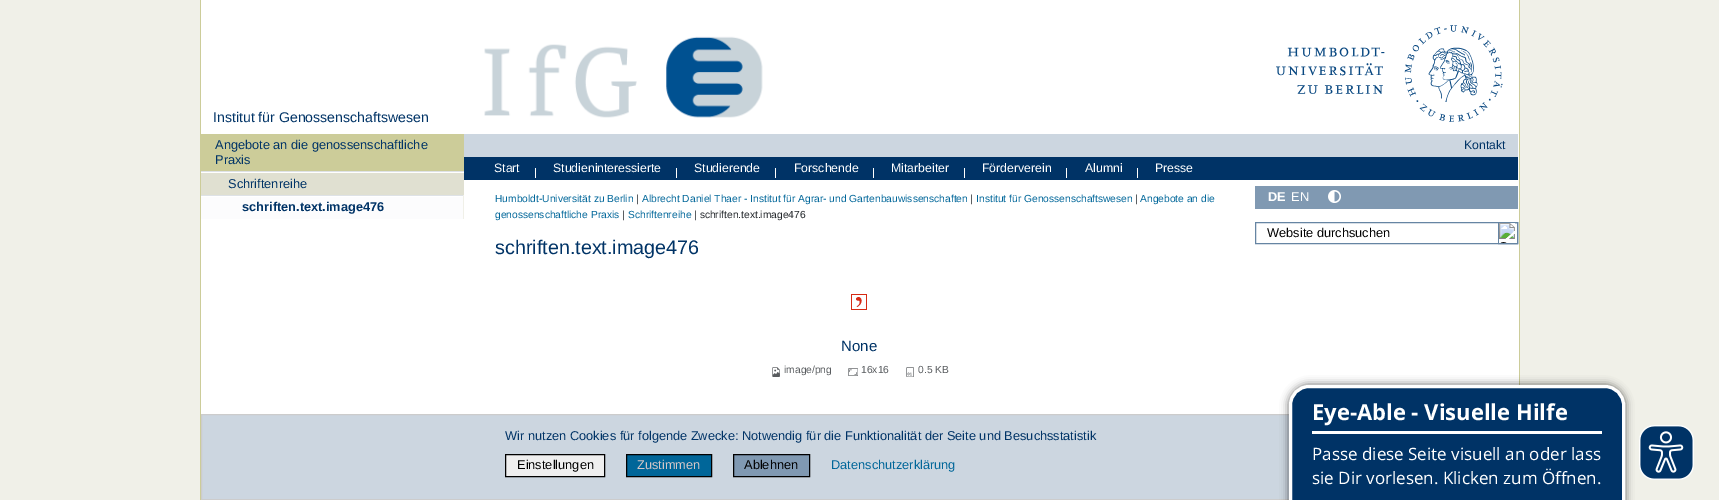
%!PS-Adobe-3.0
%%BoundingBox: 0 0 1719 500
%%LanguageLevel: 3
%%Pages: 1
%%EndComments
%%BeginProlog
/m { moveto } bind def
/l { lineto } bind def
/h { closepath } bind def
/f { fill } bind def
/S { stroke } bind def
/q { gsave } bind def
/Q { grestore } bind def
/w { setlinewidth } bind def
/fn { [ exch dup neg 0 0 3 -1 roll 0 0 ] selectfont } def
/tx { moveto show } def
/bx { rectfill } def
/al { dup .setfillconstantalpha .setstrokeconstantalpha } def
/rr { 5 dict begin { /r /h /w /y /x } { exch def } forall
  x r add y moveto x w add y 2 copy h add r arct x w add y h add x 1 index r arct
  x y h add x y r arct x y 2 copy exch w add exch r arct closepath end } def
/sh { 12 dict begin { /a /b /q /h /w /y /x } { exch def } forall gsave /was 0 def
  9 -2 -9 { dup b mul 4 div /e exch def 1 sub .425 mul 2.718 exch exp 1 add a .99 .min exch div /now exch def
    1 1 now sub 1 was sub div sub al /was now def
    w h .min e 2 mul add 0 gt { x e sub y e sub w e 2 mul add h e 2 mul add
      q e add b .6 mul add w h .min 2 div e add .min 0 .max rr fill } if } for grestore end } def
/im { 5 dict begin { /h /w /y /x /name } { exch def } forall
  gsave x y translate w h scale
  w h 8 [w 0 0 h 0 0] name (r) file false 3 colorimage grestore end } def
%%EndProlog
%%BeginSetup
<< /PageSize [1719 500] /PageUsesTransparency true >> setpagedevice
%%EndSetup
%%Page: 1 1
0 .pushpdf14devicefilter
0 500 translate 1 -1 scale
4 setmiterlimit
0.941 0.941 0.91 setrgbcolor
0 0 1719 500 bx
1 setgray
201 0 1318 414 bx
(image0.raw) 464 24 319 110 im
(image1.raw) 1276 25 227 97 im
0.8 0.8 0.6 setrgbcolor
1519 0 1 385 bx
200 0 1 500 bx
/LiberationSans-Regular 14.1 fn
0 0.2 0.4 setrgbcolor
(Institut für Genossenschaftswesen) 213 122 tx
0.8 0.8 0.6 setrgbcolor
201 134 263 37 bx
/LiberationSans-Regular 12.8 fn
0 0.2 0.4 setrgbcolor
(Angebote an die genossenschaftliche) 215 149 tx
(Praxis) 215 164 tx
0.878 0.878 0.82 setrgbcolor
201 173 263 22 bx
0.871 0.886 0.902 setrgbcolor
201 171 263 1 bx
0 0.2 0.4 setrgbcolor
(Schriftenreihe) 228 188 tx
0.871 0.886 0.902 setrgbcolor
201 195 263 1 bx
0.941 0.941 0.91 setrgbcolor
463 195 1 24 bx
0.988 0.988 0.992 setrgbcolor
201 197 262 22 bx
/LiberationSans-Bold 12.8 fn
0 0.2 0.4 setrgbcolor
(schriften.text.image476) 242 211 tx
0.8 0.839 0.878 setrgbcolor
464 134 1054 23 bx
/LiberationSans-Regular 12.25 fn
0 0.2 0.4 setrgbcolor
(Kontakt) 1464 149 tx
464 157 1054 23 bx
1 setgray
(Start) 494 172 tx
535 168 1 10 bx
(Studieninteressierte) 553 172 tx
676 168 1 10 bx
(Studierende) 694 172 tx
775 168 1 10 bx
(Forschende) 794 172 tx
873 168 1 10 bx
(Mitarbeiter) 891 172 tx
964 168 1 10 bx
(Förderverein) 982 172 tx
1066 168 1 10 bx
(Alumni) 1085 172 tx
1137 168 1 10 bx
(Presse) 1155 172 tx
/LiberationSans-Regular 10.25 fn
0 0.4 0.6 setrgbcolor
(Humboldt-Universität zu Berlin) 495 202 tx
0.129 0.145 0.161 setrgbcolor
(|) 636 202 tx
0 0.4 0.6 setrgbcolor
(Albrecht Daniel Thaer - Institut für Agrar- und Gartenbauwissenschaften) 642 202 tx
0.129 0.145 0.161 setrgbcolor
(|) 970 202 tx
0 0.4 0.6 setrgbcolor
(Institut für Genossenschaftswesen) 976 202 tx
0.129 0.145 0.161 setrgbcolor
(|) 1135 202 tx
0 0.4 0.6 setrgbcolor
(Angebote an die) 1140 202 tx
(genossenschaftliche Praxis) 495 218 tx
0.129 0.145 0.161 setrgbcolor
(|) 622 218 tx
0 0.4 0.6 setrgbcolor
(Schriftenreihe) 628 218 tx
0.129 0.145 0.161 setrgbcolor
(| schriften.text.image476) 694 218 tx
/LiberationSans-Regular 19.75 fn
0 0.2 0.4 setrgbcolor
(schriften.text.image476) 495 254 tx
(image2.raw) 851 294 16 16 im
/LiberationSans-Regular 15 fn
(None) 841 351 tx
(image3.raw) 772 367 8 10 im
/LiberationSans-Regular 10.25 fn
0.349 0.361 0.373 setrgbcolor
(image/png) 784 373 tx
(image4.raw) 848 368 10 8 im
(16x16) 861 373 tx
(image5.raw) 906 367 8 10 im
(0.5 KB) 918 373 tx
0.502 0.6 0.698 setrgbcolor
1255 186 263 23 bx
/LiberationSans-Bold 12.8 fn
1 setgray
(DE) 1268 201 tx
/LiberationSans-Regular 12.8 fn
(EN) 1291 201 tx
(image6.raw) 1328 190 13 13 im
0.4 0.522 0.639 setrgbcolor
1255.5 222.5 262 21 rectstroke
0 setgray
(Website durchsuchen) 1267 237 tx
0.4 0.522 0.639 setrgbcolor
1498.5 222.5 19 21 rectstroke
(image7.raw) 1499 223 16 20 im
0.8 0.839 0.878 setrgbcolor
202 415 1087 84 bx
0.8 setgray
201.5 414.5 1319 85 rectstroke
0 0.2 0.4 setrgbcolor
(Wir nutzen Cookies für folgende Zwecke: Notwendig für die Funktionalität der Seite und Besuchsstatistik) 505 440 tx
0.937 setgray
505.5 454.5 m 604.5 454.5 l 604.5 476.5 l 505.5 476.5 l h q f Q
0 setgray
S
(Einstellungen) 517 469 tx
0 0.4 0.6 setrgbcolor
626.5 454.5 m 711.5 454.5 l 711.5 476.5 l 626.5 476.5 l h q f Q
0 setgray
S
0.835 0.78 0.78 setrgbcolor
(Zustimmen) 637 469 tx
0.502 0.6 0.698 setrgbcolor
733.5 454.5 m 809.5 454.5 l 809.5 476.5 l 733.5 476.5 l h q f Q
0 setgray
S
(Ablehnen) 744 469 tx
0 0.4 0.6 setrgbcolor
(Datenschutzerklärung) 831 469 tx
0 setgray
1288 384 338 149 21 4 0.5 sh
0 0.2 0.4 setrgbcolor
1290.5 386.5 333 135 18.5 rr q f Q
1 setgray
3 w
S
1312 431 290 3 bx
/OpenSans-Bold 22 fn
(Eye-Able - Visuelle Hilfe) 1312 420 tx
/OpenSans-Regular 17 fn
(Passe diese Seite visuell an oder lass) 1312 460 tx
(sie Dir vorlesen. Klicken zum Öffnen.) 1312 484 tx
(image8.raw) 1639 425 55 55 im
.poppdf14devicefilter showpage
%%EOF
